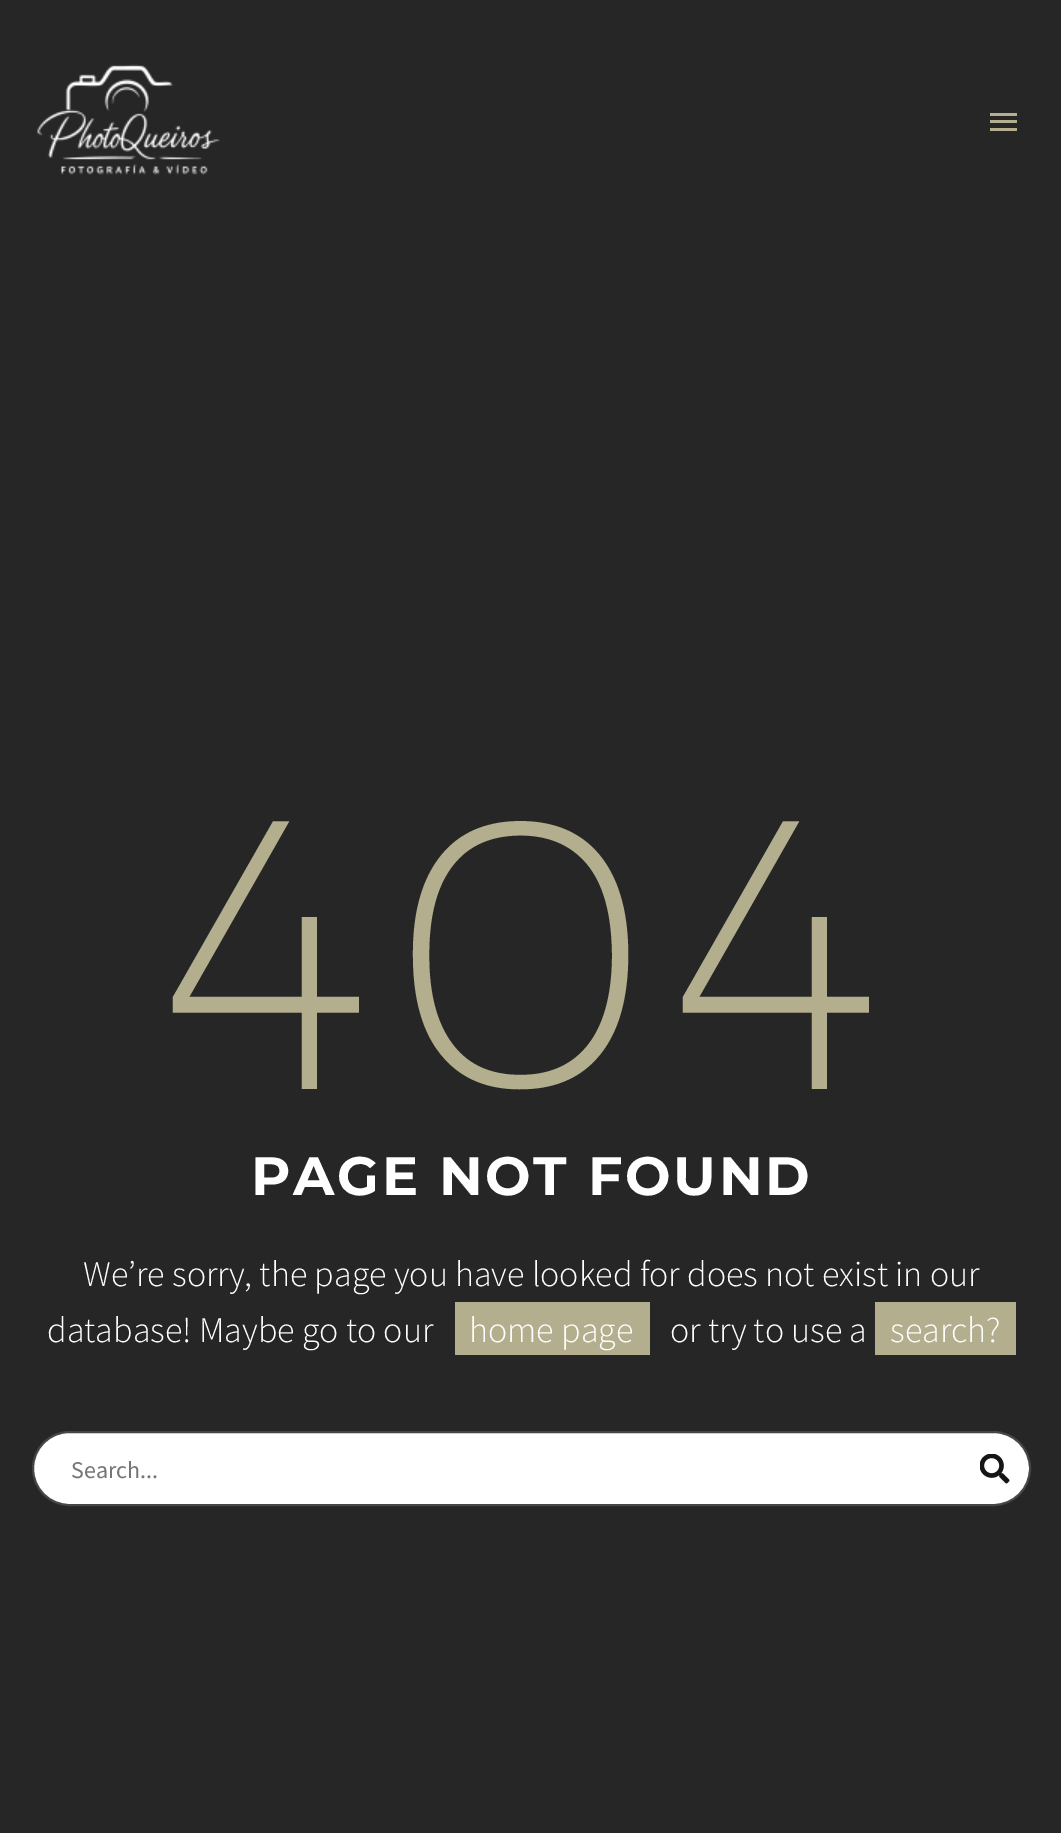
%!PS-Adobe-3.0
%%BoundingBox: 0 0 1061 1833
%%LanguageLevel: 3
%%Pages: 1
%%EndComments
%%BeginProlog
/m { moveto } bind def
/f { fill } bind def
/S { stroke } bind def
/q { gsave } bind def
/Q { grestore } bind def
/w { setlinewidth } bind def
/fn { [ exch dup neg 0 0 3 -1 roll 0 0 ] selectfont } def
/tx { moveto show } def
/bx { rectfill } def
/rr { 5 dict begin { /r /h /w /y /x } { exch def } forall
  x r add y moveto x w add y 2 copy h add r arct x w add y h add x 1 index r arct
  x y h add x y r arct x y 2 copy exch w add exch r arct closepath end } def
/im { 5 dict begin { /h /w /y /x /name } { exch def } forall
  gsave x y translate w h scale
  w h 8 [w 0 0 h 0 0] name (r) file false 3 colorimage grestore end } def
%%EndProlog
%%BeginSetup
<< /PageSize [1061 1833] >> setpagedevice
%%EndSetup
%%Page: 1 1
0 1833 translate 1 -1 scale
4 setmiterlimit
0.149 setgray
0 0 1061 1833 bx
(image0.raw) 37 64 183 111 im
0.702 0.682 0.553 setrgbcolor
990 113 27 3 bx
990 120 27 3 bx
990 128 27 3 bx
/Montserrat-ExtraLight 383 fn
160 1089 m 19 0 (404) ashow
/Montserrat-Bold 54 fn
1 setgray
251 1195 m 2.75 0 (PAGE NOT FOUND) ashow
/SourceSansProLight-Light 36 fn
(We’re sorry, the page you have looked for does not exist in our) 83 1286 tx
(database! Maybe go to our) 47 1342 tx
0.702 0.682 0.553 setrgbcolor
455 1302 195 53 bx
1 setgray
(home page) 469 1342 tx
(or try to use a) 670 1342 tx
0.702 0.682 0.553 setrgbcolor
875 1302 141 53 bx
1 setgray
(search?) 890 1342 tx
33 1432 997 73 36.5 rr q f Q
0.275 setgray
2 w
S
/SourceSansPro-Regular 24 fn
0.459 setgray
(Search...) 71 1478 tx
(image1.raw) 980 1454 30 30 im
showpage
%%EOF
